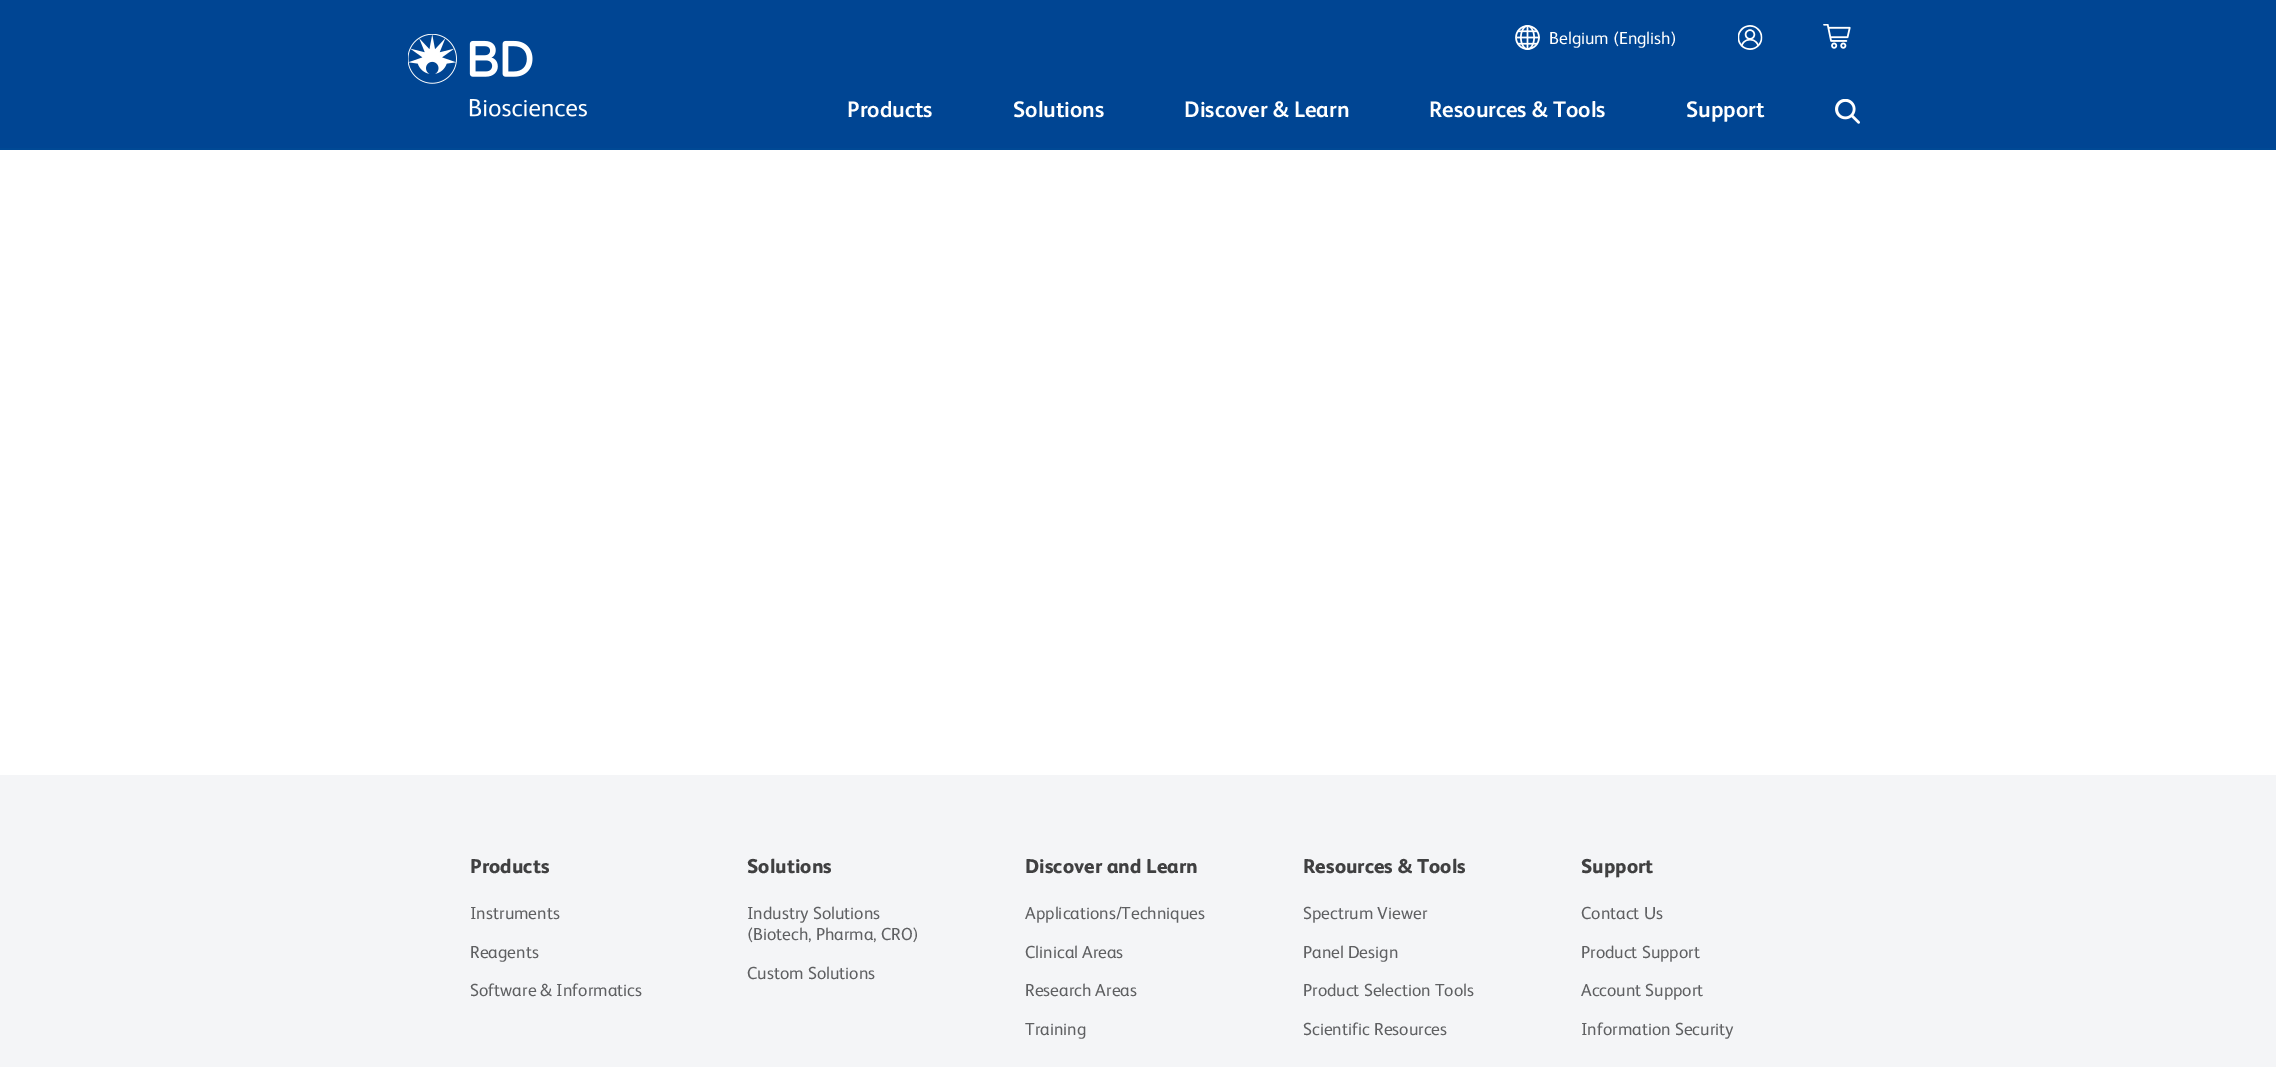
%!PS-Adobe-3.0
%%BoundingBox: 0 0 2276 1067
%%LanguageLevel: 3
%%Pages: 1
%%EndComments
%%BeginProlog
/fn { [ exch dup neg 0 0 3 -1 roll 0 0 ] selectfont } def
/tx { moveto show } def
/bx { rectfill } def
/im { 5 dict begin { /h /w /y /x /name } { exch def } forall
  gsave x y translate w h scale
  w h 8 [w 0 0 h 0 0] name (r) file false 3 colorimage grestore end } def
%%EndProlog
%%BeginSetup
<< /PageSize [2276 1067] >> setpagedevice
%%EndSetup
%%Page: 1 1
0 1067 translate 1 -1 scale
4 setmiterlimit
1 setgray
0 0 2276 1067 bx
0 0.271 0.576 setrgbcolor
0 0 2276 148 bx
(image0.raw) 408 34 179 83 im
(image1.raw) 1515 25 25 25 im
/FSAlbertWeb-Regular 17.5 fn
1 setgray
(Belgium \(English\)) 1549 44 tx
(image2.raw) 1738 25 25 25 im
(image3.raw) 1823 24 28 25 im
/FSAlbertWeb-Bold 22.5 fn
(Products) 847 117 tx
(Solutions) 1013 117 tx
(Discover & Learn) 1184 117 tx
(Resources & Tools) 1429 117 tx
(Support) 1686 117 tx
(image4.raw) 1835 99 25 25 im
0 0.286 0.584 setrgbcolor
0 148 2276 2 bx
0.957 0.961 0.969 setrgbcolor
0 775 2276 292 bx
/FSAlbertWeb-ExtraBold 20 fn
0.251 0.251 0.255 setrgbcolor
(Products) 470 873 tx
/FSAlbertWeb-Regular 17.5 fn
0.373 0.376 0.384 setrgbcolor
(Instruments) 470 919 tx
(Reagents) 470 958 tx
(Software & Informatics) 470 996 tx
/FSAlbertWeb-ExtraBold 20 fn
0.251 0.251 0.255 setrgbcolor
(Solutions) 747 873 tx
/FSAlbertWeb-Regular 17.5 fn
0.373 0.376 0.384 setrgbcolor
(Industry Solutions) 747 919 tx
(\(Biotech, Pharma, CRO\)) 747 940 tx
(Custom Solutions) 747 979 tx
/FSAlbertWeb-ExtraBold 20 fn
0.251 0.251 0.255 setrgbcolor
(Discover and Learn) 1025 873 tx
/FSAlbertWeb-Regular 17.5 fn
0.373 0.376 0.384 setrgbcolor
(Applications/Techniques) 1025 919 tx
(Clinical Areas) 1025 958 tx
(Research Areas) 1025 996 tx
(Training) 1025 1035 tx
/FSAlbertWeb-ExtraBold 20 fn
0.251 0.251 0.255 setrgbcolor
(Resources & Tools) 1303 873 tx
/FSAlbertWeb-Regular 17.5 fn
0.373 0.376 0.384 setrgbcolor
(Spectrum Viewer) 1303 919 tx
(Panel Design) 1303 958 tx
(Product Selection Tools) 1303 996 tx
(Scientific Resources) 1303 1035 tx
/FSAlbertWeb-ExtraBold 20 fn
0.251 0.251 0.255 setrgbcolor
(Support) 1581 873 tx
/FSAlbertWeb-Regular 17.5 fn
0.373 0.376 0.384 setrgbcolor
(Contact Us) 1581 919 tx
(Product Support) 1581 958 tx
(Account Support) 1581 996 tx
(Information Security) 1581 1035 tx
showpage
%%EOF
